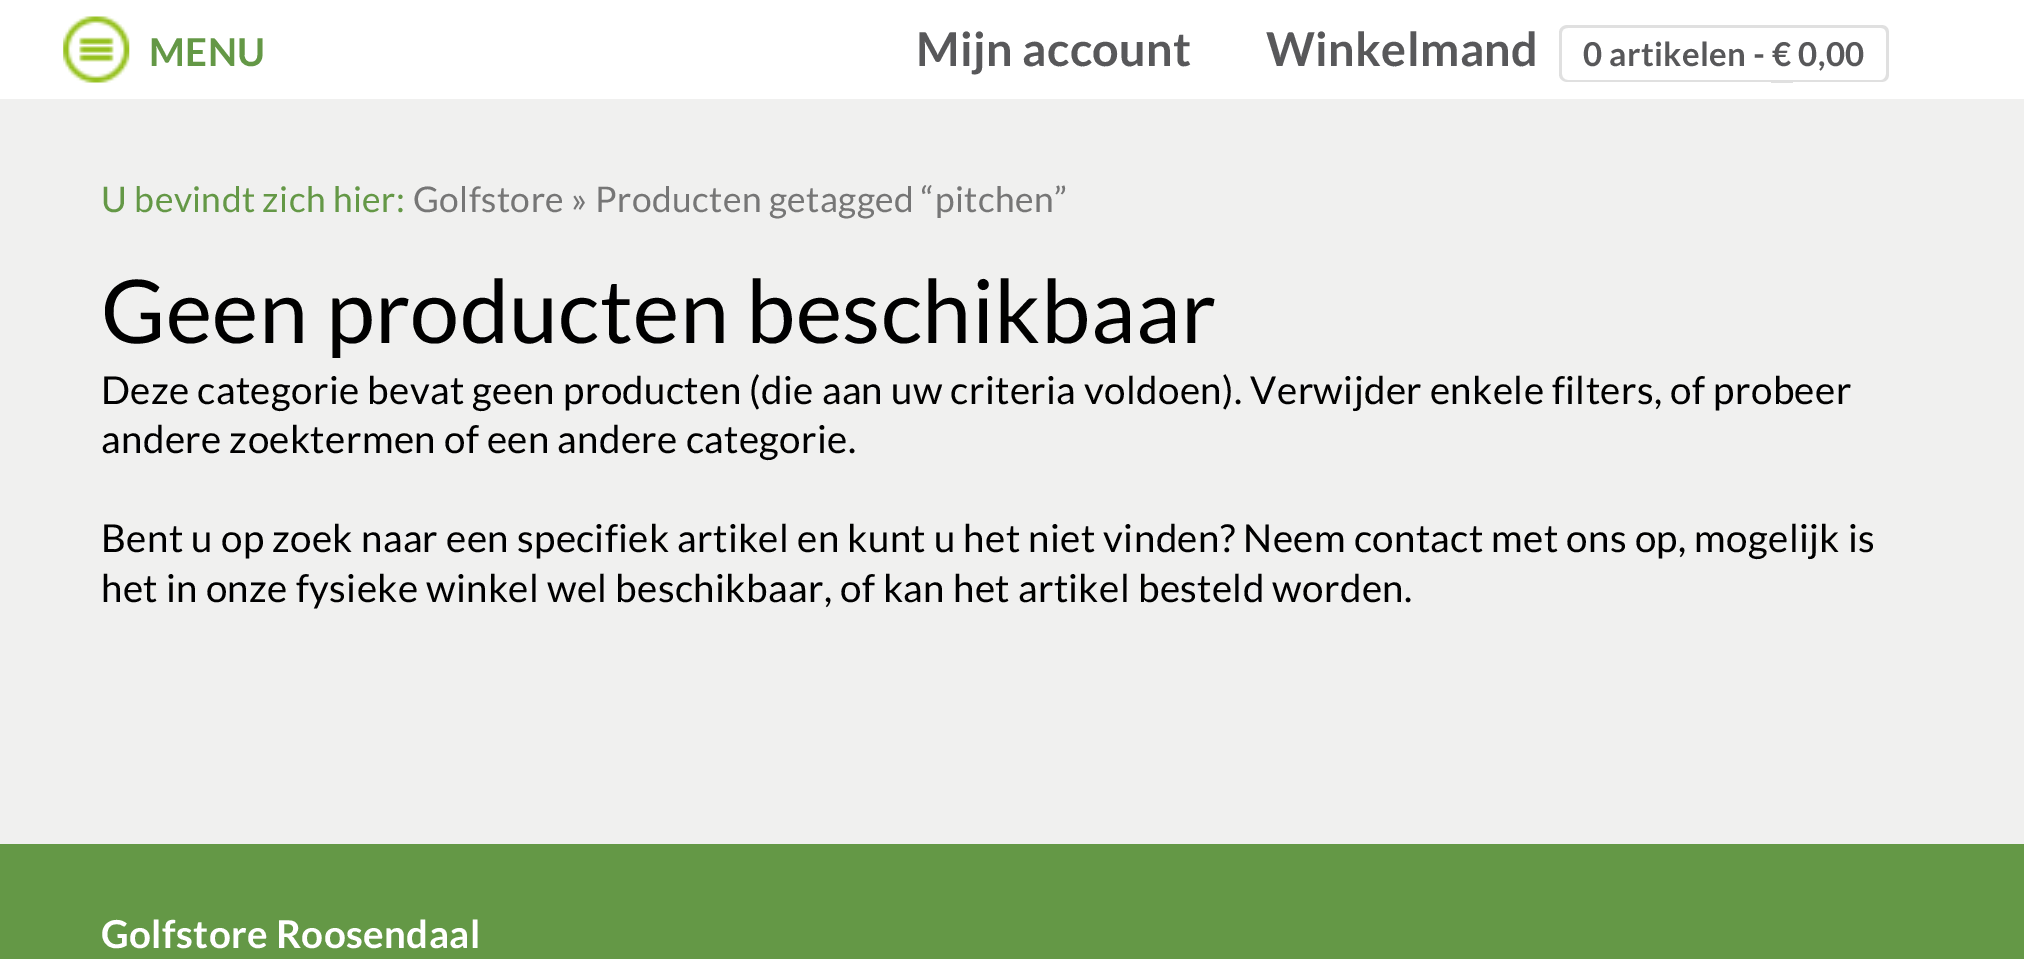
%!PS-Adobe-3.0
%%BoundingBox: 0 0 2024 959
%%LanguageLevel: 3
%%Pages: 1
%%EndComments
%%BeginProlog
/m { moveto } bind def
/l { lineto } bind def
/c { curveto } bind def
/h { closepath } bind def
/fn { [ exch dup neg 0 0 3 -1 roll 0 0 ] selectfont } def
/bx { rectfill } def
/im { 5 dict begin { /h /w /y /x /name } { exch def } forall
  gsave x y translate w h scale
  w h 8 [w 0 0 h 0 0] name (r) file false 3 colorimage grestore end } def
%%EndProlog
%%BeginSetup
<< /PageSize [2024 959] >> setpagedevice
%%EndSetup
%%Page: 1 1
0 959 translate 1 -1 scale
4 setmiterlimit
0.941 0.941 0.937 setrgbcolor
0 0 2024 959 bx
1 setgray
0 0 2024 99 bx
(image0.raw) 63 16 67 67 im
/Lato-Bold 38.5 fn
0.392 0.596 0.275 setrgbcolor
149 66 m 0.39 0 (MENU) ashow
/Lato-Bold 46.75 fn
0.345 0.345 0.353 setrgbcolor
916 66 m 0.39 0 (Mijn account) ashow
1266 66 m 0.39 0 (Winkelmand) ashow
0.878 setgray
1568 25 m 1771 25 l 1771 82 l 1568 82 l 1563 82 1559 79 1559 74 c 1559 33 l 1559 28 1563 25 1568 25 c h 1568 28 m 1771 28 l 1771 80 l 1568 80 l 1564 80 1562 77 1562 74 c 1562 33 l 1562 30 1564 28 1568 28 c h eofill
1793 25 m 1881 25 l 1886 25 1889 28 1889 33 c 1889 74 l 1889 79 1886 82 1881 82 c 1793 82 l h 1793 28 m 1881 28 l 1884 28 1886 30 1886 33 c 1886 74 l 1886 77 1884 80 1881 80 c 1793 80 l h eofill
/Lato-Bold 33 fn
0.345 0.345 0.353 setrgbcolor
1583 66 m 0.39 0 (0 artikelen - € 0,00) ashow
0.878 setgray
1771 25 22 3 bx
1771 80 22 3 bx
/Lato-Regular 35.4 fn
0.392 0.596 0.275 setrgbcolor
101 212 m 0.39 0 (U bevindt zich hier:) ashow
0.463 setgray
413 212 m 0.39 0 (Golfstore » Producten getagged “pitchen”) ashow
/Lato-Regular 88 fn
0 setgray
101 343 m 0.39 0 (Geen producten beschikbaar) ashow
/Lato-Regular 38.5 fn
101 404 m 0.39 0 (Deze categorie bevat geen producten \(die aan uw criteria voldoen\). Verwijder enkele filters, of probeer) ashow
101 453 m 0.39 0 (andere zoektermen of een andere categorie.) ashow
101 552 m 0.39 0 (Bent u op zoek naar een specifiek artikel en kunt u het niet vinden? Neem contact met ons op, mogelijk is) ashow
101 602 m 0.39 0 (het in onze fysieke winkel wel beschikbaar, of kan het artikel besteld worden.) ashow
0.392 0.596 0.275 setrgbcolor
0 844 2024 115 bx
/Lato-Bold 38.5 fn
1 setgray
101 948 m 0.39 0 (Golfstore Roosendaal) ashow
showpage
%%EOF
